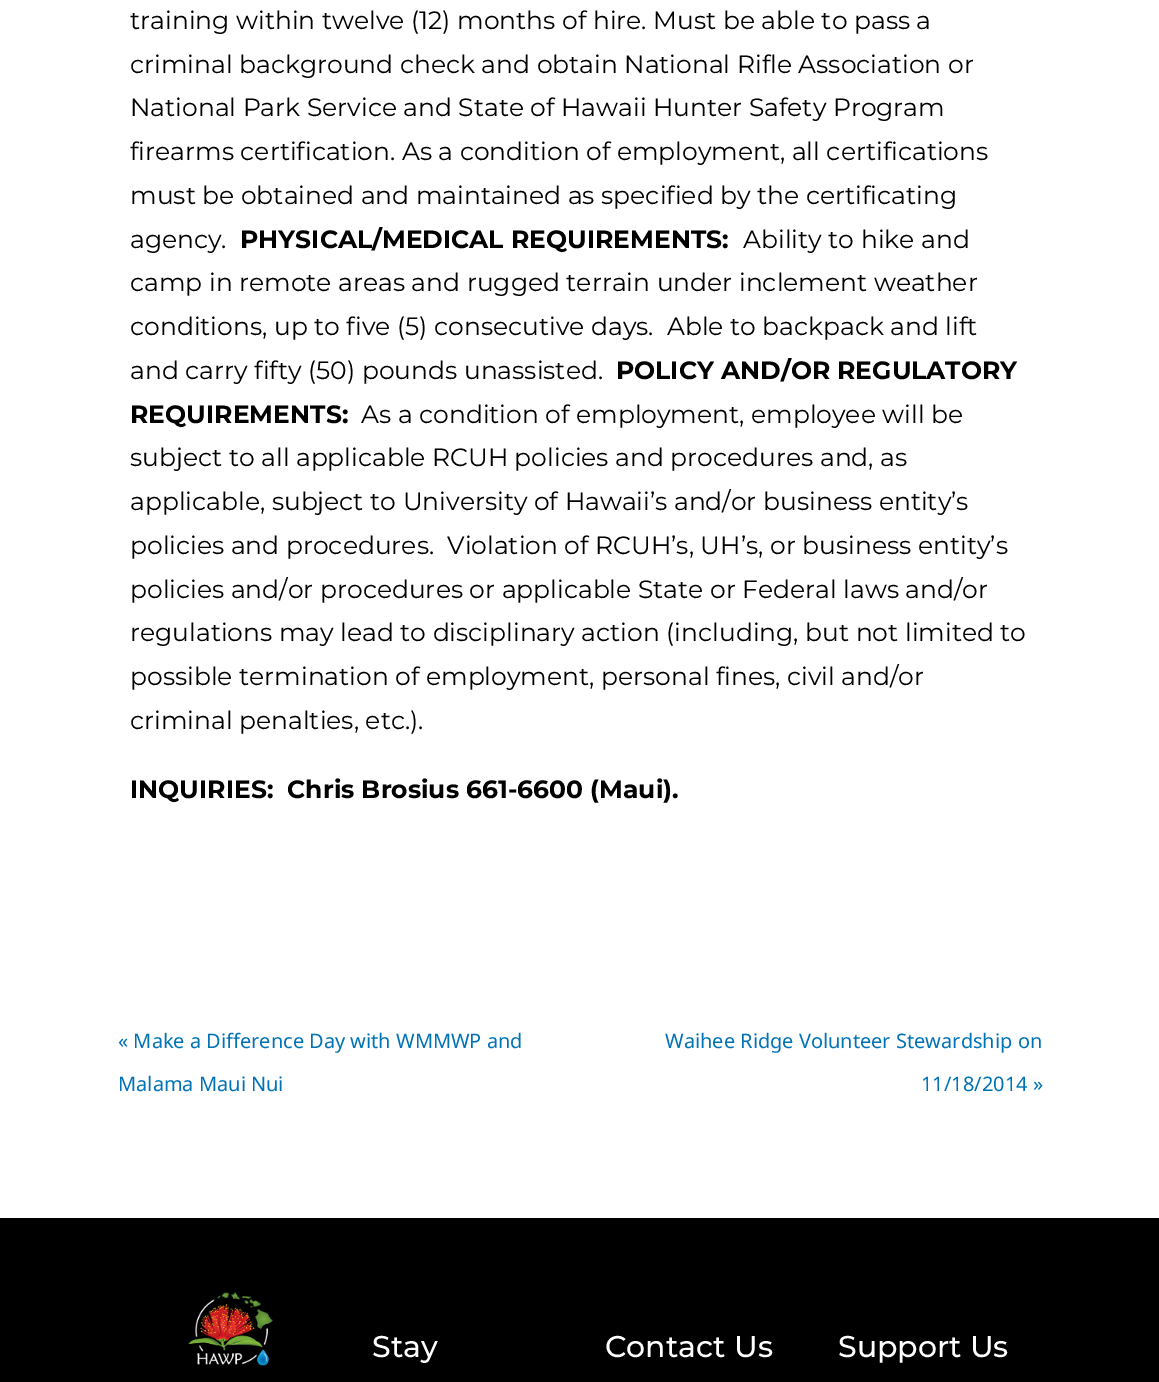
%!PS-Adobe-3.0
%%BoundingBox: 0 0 1159 1382
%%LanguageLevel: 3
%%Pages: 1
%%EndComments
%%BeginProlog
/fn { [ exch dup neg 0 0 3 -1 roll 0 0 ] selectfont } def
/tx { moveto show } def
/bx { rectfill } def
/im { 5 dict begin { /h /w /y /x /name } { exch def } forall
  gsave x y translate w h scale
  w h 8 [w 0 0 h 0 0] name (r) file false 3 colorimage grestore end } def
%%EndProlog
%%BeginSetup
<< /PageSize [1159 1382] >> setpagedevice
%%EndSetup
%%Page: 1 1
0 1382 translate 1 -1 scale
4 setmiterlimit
1 setgray
0 0 1159 1382 bx
/Montserrat-Regular 25 fn
0 setgray
(training within twelve \(12\) months of hire. Must be able to pass a) 130 29 tx
(criminal background check and obtain National Rifle Association or) 130 73 tx
(National Park Service and State of Hawaii Hunter Safety Program) 130 116 tx
(firearms certification. As a condition of employment, all certifications) 130 160 tx
(must be obtained and maintained as specified by the certificating) 130 204 tx
(agency.) 130 248 tx
/Montserrat-Bold 25 fn
(PHYSICAL/MEDICAL REQUIREMENTS:) 240 248 tx
/Montserrat-Regular 25 fn
(Ability to hike and) 743 248 tx
(camp in remote areas and rugged terrain under inclement weather) 130 291 tx
(conditions, up to five \(5\) consecutive days.  Able to backpack and lift) 130 335 tx
(and carry fifty \(50\) pounds unassisted.) 130 379 tx
/Montserrat-Bold 25 fn
(POLICY AND/OR REGULATORY) 616 379 tx
(REQUIREMENTS:) 130 423 tx
/Montserrat-Regular 25 fn
(As a condition of employment, employee will be) 361 423 tx
(subject to all applicable RCUH policies and procedures and, as) 130 466 tx
(applicable, subject to University of Hawaii’s and/or business entity’s) 130 510 tx
(policies and procedures.  Violation of RCUH’s, UH’s, or business entity’s) 130 554 tx
(policies and/or procedures or applicable State or Federal laws and/or) 130 598 tx
(regulations may lead to disciplinary action \(including, but not limited to) 130 641 tx
(possible termination of employment, personal fines, civil and/or) 130 685 tx
(criminal penalties, etc.\).) 130 729 tx
/Montserrat-Bold 25 fn
(INQUIRIES:  Chris Brosius 661-6600 \(Maui\).) 130 798 tx
/NotoSans-Regular 20 fn
0 0.451 0.714 setrgbcolor
(« Make a Difference Day with WMMWP and) 118 1048 tx
(Malama Maui Nui) 118 1091 tx
(Waihee Ridge Volunteer Stewardship on) 665 1048 tx
(11/18/2014 ») 921 1091 tx
0 setgray
0 1218 1159 164 bx
(image0.raw) 188 1292 85 74 im
/Montserrat-Medium 30 fn
1 setgray
(Stay) 372 1357 tx
(Contact Us) 605 1357 tx
(Support Us) 838 1357 tx
showpage
%%EOF
